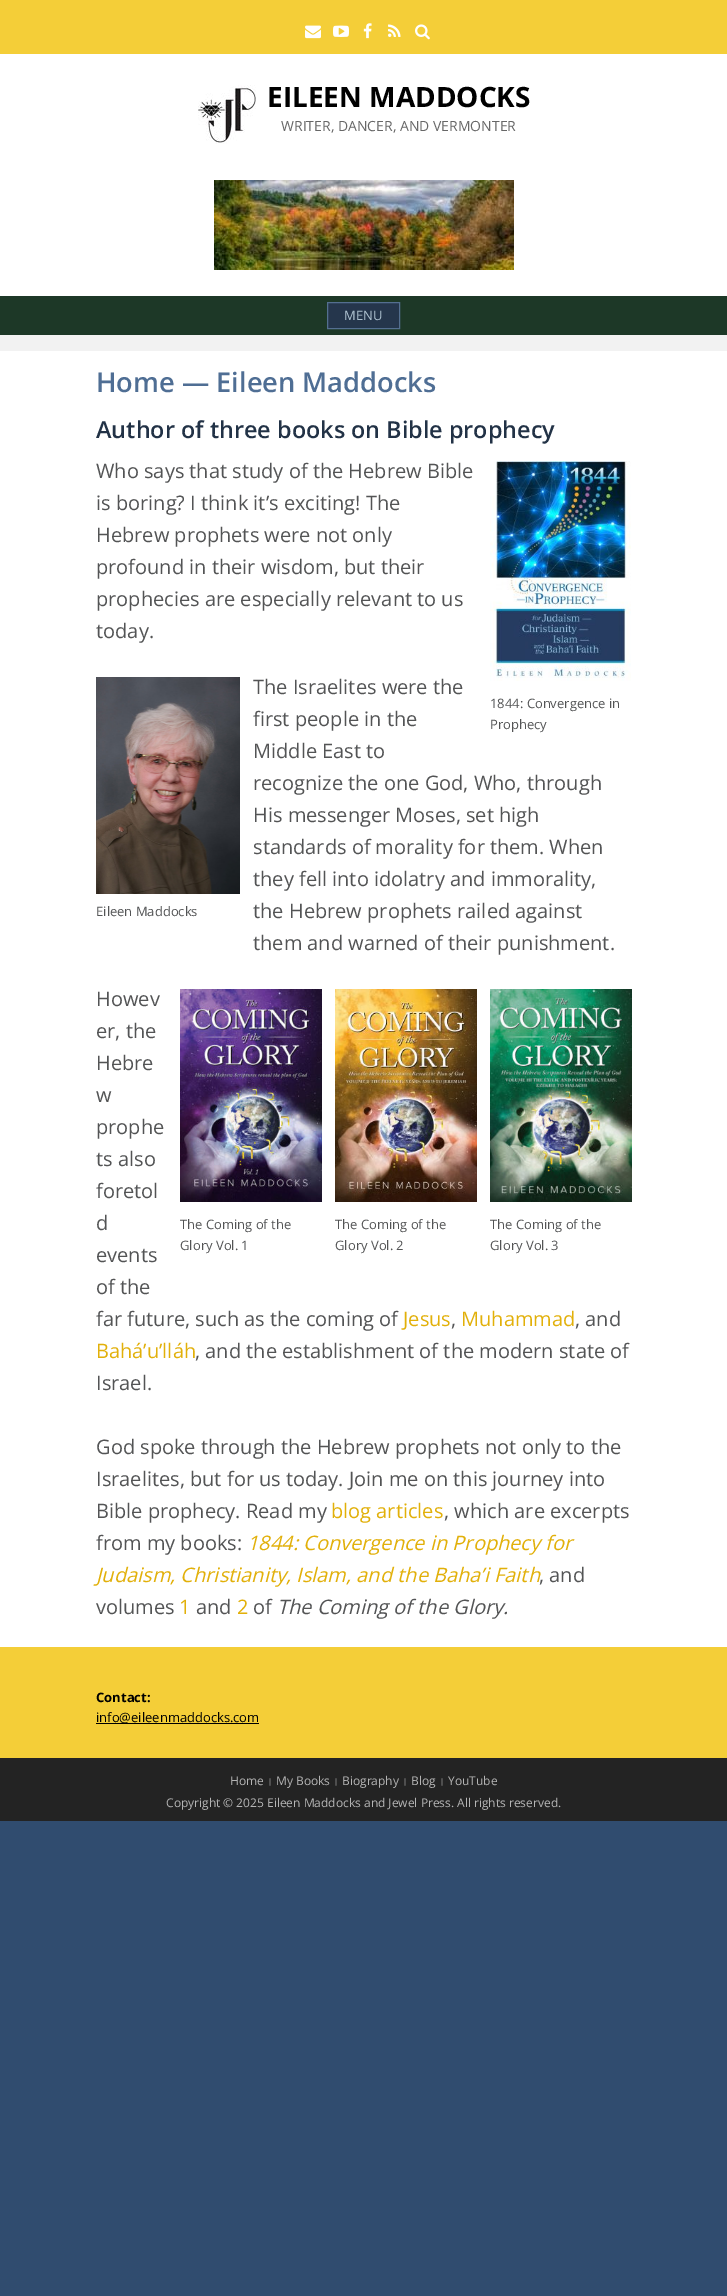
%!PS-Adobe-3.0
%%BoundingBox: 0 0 727 2296
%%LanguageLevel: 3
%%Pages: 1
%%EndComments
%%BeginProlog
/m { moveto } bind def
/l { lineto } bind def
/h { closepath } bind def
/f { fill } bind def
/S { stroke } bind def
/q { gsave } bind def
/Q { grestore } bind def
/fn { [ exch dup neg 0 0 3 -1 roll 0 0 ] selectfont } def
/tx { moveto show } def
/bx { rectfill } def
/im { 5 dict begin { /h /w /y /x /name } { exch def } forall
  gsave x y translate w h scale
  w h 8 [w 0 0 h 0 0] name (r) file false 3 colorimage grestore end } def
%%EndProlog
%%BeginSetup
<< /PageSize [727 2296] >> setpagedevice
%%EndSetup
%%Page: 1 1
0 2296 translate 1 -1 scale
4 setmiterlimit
0.188 0.298 0.435 setrgbcolor
0 0 727 2296 bx
0.957 0.808 0.22 setrgbcolor
0 0 727 54 bx
(image0.raw) 305 25 16 14 im
(image1.raw) 333 25 16 12 im
(image2.raw) 363 23 9 16 im
(image3.raw) 388 24 13 13 im
(image4.raw) 415 24 15 16 im
1 setgray
0 54 727 242 bx
(image5.raw) 198 85 58 59 im
/OpenSans-Bold 28 fn
0 setgray
(EILEEN MADDOCKS) 267 107 tx
/OpenSans-Regular 14 fn
0.404 setgray
(WRITER, DANCER, AND VERMONTER) 281 131 tx
(image6.raw) 214 180 300 90 im
0.114 0.22 0.153 setrgbcolor
0 296 727 39 bx
0.145 0.212 0.298 setrgbcolor
327.5 302.5 m 399.5 302.5 l 399.5 328.5 l 327.5 328.5 l h q f Q
0.329 0.435 0.565 setrgbcolor
S
/OpenSans-Regular 13 fn
0.682 0.761 0.816 setrgbcolor
(MENU) 344 320 tx
0.949 setgray
0 335 727 16 bx
1 setgray
0 351 727 1296 bx
/OpenSans-SemiBold 27.25 fn
0.31 0.431 0.58 setrgbcolor
(Home — Eileen Maddocks) 96 392 tx
/OpenSans-SemiBold 23.4 fn
0.133 0.196 0.275 setrgbcolor
(Author of three books on Bible prophecy) 96 438 tx
/OpenSans-Regular 20 fn
0.325 0.329 0.333 setrgbcolor
(Who says that study of the Hebrew Bible) 96 478 tx
(is boring? I think it’s exciting! The) 96 510 tx
(Hebrew prophets were not only) 96 542 tx
(profound in their wisdom, but their) 96 574 tx
(prophecies are especially relevant to us) 96 606 tx
(today.) 96 638 tx
(The Israelites were the) 253 694 tx
(first people in the) 253 726 tx
(Middle East to) 253 758 tx
(recognize the one God, Who, through) 253 790 tx
(His messenger Moses, set high) 253 822 tx
(standards of morality for them. When) 253 854 tx
(they fell into idolatry and immorality,) 253 886 tx
(the Hebrew prophets railed against) 253 918 tx
(them and warned of their punishment.) 253 950 tx
(image7.raw) 490 461 141 220 im
/OpenSans-Regular 13 fn
(1844: Convergence in) 490 708 tx
(Prophecy) 490 729 tx
(image8.raw) 96 677 144 217 im
(Eileen Maddocks) 96 916 tx
/OpenSans-Regular 20 fn
(Howev) 96 1006 tx
(er, the) 96 1038 tx
(Hebre) 96 1070 tx
(w) 96 1102 tx
(prophe) 96 1134 tx
(ts also) 96 1166 tx
(foretol) 96 1198 tx
(d) 96 1230 tx
(events) 96 1262 tx
(of the) 96 1294 tx
(far future, such as the coming of) 96 1326 tx
0.886 0.69 0.035 setrgbcolor
(Jesus) 403 1326 tx
0.325 0.329 0.333 setrgbcolor
(,) 451 1326 tx
0.886 0.69 0.035 setrgbcolor
(Muhammad) 461 1326 tx
0.325 0.329 0.333 setrgbcolor
(, and) 575 1326 tx
0.886 0.69 0.035 setrgbcolor
(Bahá’u’lláh) 96 1358 tx
0.325 0.329 0.333 setrgbcolor
(, and the establishment of the modern state of) 195 1358 tx
(Israel.) 96 1390 tx
(God spoke through the Hebrew prophets not only to the) 96 1454 tx
(Israelites, but for us today. Join me on this journey into) 96 1486 tx
(Bible prophecy. Read my) 96 1518 tx
0.886 0.69 0.035 setrgbcolor
(blog articles) 331 1518 tx
0.325 0.329 0.333 setrgbcolor
(, which are excerpts) 444 1518 tx
(from my books:) 96 1550 tx
/OpenSans-Italic 20 fn
0.886 0.69 0.035 setrgbcolor
(1844: Convergence in Prophecy for) 247 1550 tx
(Judaism, Christianity, Islam, and the Baha’i Faith) 96 1582 tx
/OpenSans-Regular 20 fn
0.325 0.329 0.333 setrgbcolor
(, and) 539 1582 tx
(volumes) 96 1614 tx
0.886 0.69 0.035 setrgbcolor
(1) 179 1614 tx
0.325 0.329 0.333 setrgbcolor
(and) 196 1614 tx
0.886 0.69 0.035 setrgbcolor
(2) 237 1614 tx
0.325 0.329 0.333 setrgbcolor
(of) 253 1614 tx
/OpenSans-Italic 20 fn
(The Coming of the Glory.) 277 1614 tx
(image9.raw) 180 989 142 213 im
/OpenSans-Regular 13 fn
(The Coming of the) 180 1229 tx
(Glory Vol. 1) 180 1250 tx
(image10.raw) 335 989 142 213 im
(The Coming of the) 335 1229 tx
(Glory Vol. 2) 335 1250 tx
(image11.raw) 490 989 142 213 im
(The Coming of the) 490 1229 tx
(Glory Vol. 3) 490 1250 tx
0.957 0.808 0.22 setrgbcolor
0 1647 727 111 bx
/OpenSans-Bold 13 fn
0 setgray
(Contact:) 96 1702 tx
96 1723 163 1 bx
/OpenSans-Regular 13 fn
(info@eileenmaddocks.com) 96 1722 tx
0.137 setgray
0 1758 727 63 bx
/OpenSans-Regular 12 fn
0.71 setgray
(Home) 230 1785 tx
/LiberationSans-Regular 8 fn
0.8 setgray
(|) 269 1784 tx
/OpenSans-Regular 12 fn
0.71 setgray
(My Books) 276 1785 tx
/LiberationSans-Regular 8 fn
0.8 setgray
(|) 335 1784 tx
/OpenSans-Regular 12 fn
0.71 setgray
(Biography) 342 1785 tx
/LiberationSans-Regular 8 fn
0.8 setgray
(|) 404 1784 tx
/OpenSans-Regular 12 fn
0.71 setgray
(Blog) 411 1785 tx
/LiberationSans-Regular 8 fn
0.8 setgray
(|) 441 1784 tx
/OpenSans-Regular 12 fn
0.71 setgray
(YouTube) 448 1785 tx
(Copyright © 2025 Eileen Maddocks and Jewel Press. All rights reserved.) 166 1807 tx
showpage
%%EOF
